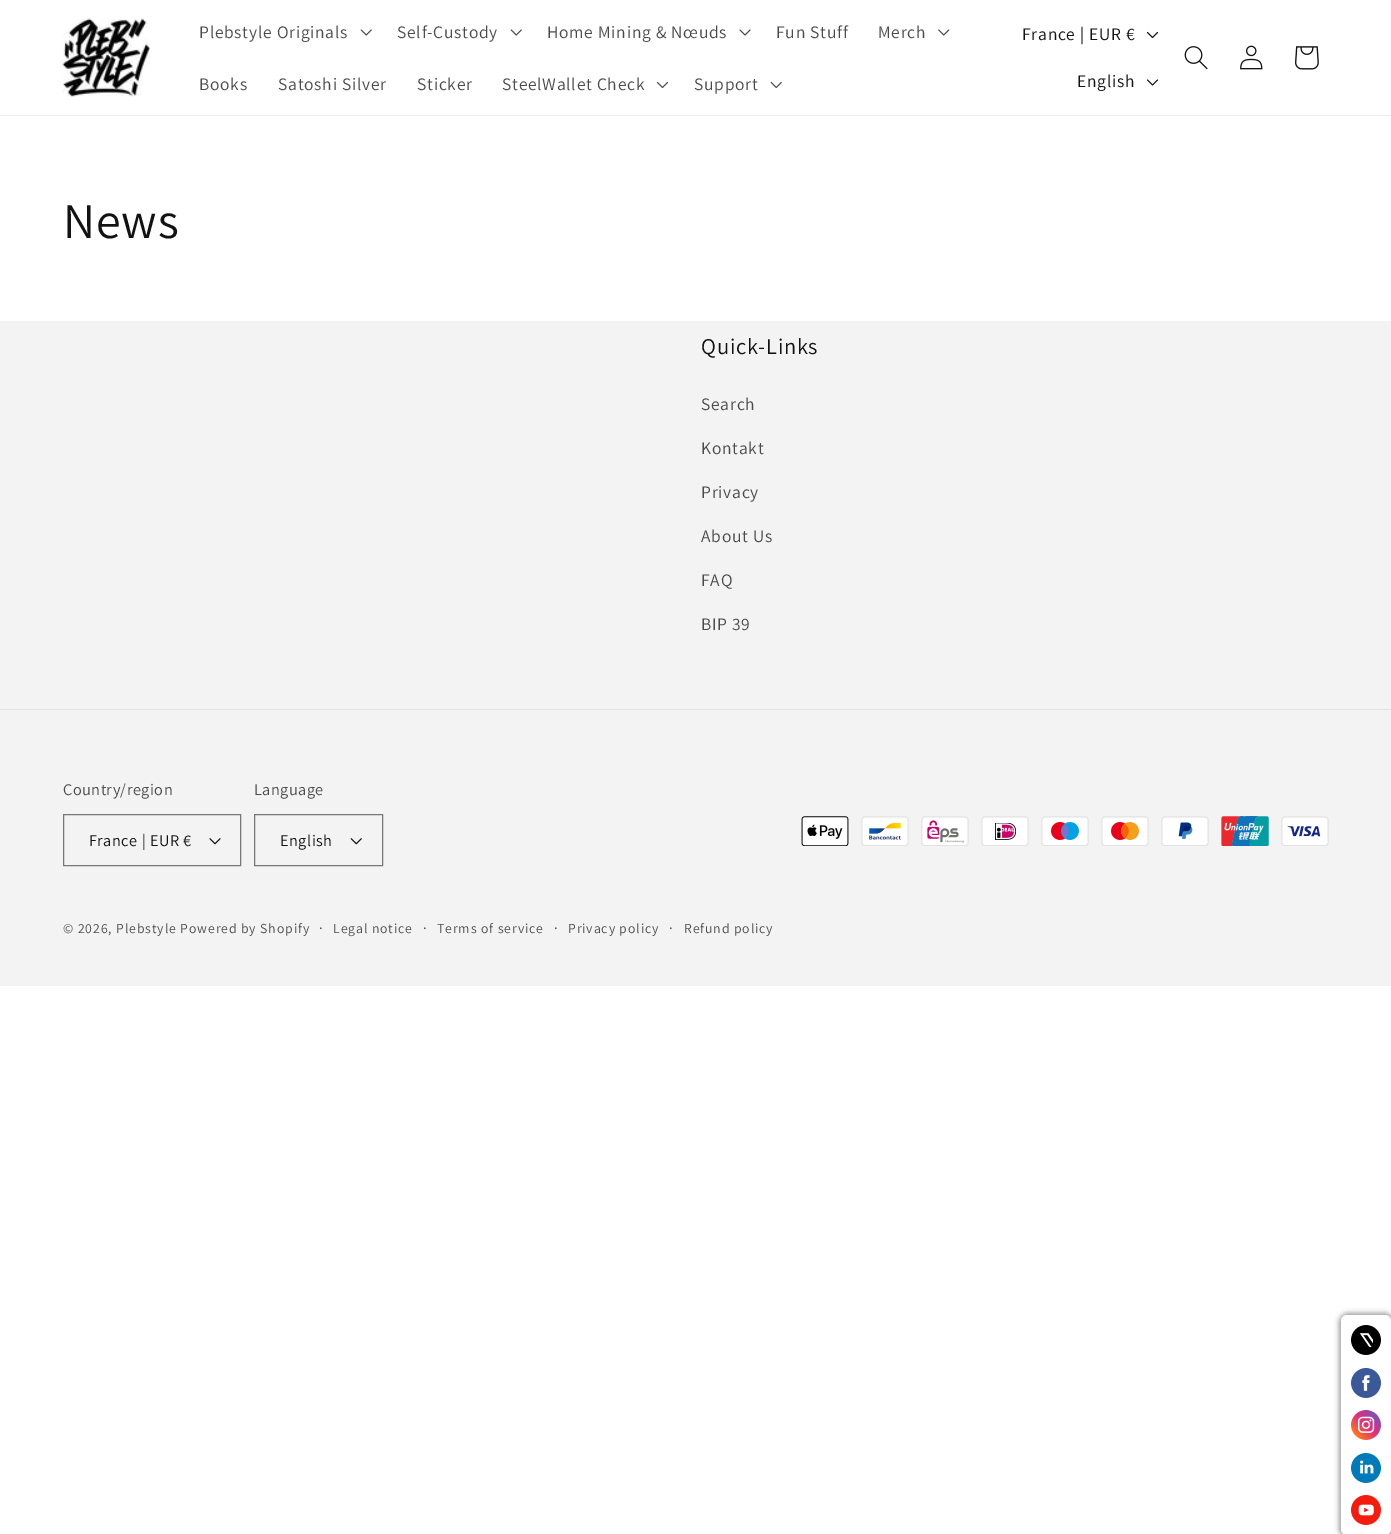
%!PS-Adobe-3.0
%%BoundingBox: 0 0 1391 1534
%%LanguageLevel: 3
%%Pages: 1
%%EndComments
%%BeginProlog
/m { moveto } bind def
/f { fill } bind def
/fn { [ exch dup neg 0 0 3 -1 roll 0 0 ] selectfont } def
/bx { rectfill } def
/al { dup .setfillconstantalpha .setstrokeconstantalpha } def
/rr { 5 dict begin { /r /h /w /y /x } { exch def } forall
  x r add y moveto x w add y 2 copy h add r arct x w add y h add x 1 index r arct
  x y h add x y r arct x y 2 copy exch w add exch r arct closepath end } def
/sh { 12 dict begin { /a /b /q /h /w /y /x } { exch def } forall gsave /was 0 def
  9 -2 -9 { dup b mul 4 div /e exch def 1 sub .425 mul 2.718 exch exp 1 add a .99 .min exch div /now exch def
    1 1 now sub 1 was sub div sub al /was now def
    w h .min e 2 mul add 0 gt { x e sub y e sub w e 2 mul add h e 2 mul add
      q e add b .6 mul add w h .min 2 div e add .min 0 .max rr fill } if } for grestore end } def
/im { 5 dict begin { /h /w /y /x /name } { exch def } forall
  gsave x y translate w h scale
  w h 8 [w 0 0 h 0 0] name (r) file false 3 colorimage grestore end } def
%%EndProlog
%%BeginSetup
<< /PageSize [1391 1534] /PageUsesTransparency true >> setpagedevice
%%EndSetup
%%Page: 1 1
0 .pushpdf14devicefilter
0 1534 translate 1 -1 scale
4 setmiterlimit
1 setgray
0 0 1391 1534 bx
0.925 setgray
0 115 1391 1 bx
(image0.raw) 62 18 88 79 im
/Assistant-Regular 17.5 fn
0.29 setgray
199 38 m 0.75 0 (Plebstyle Originals) ashow
(image1.raw) 360 29 12 7 im
397 38 m 0.75 0 (Self-Custody) ashow
(image1.raw) 510 29 12 7 im
547 38 m 0.75 0 (Home Mining & Nœuds) ashow
(image2.raw) 739 29 12 7 im
776 38 m 0.75 0 (Fun Stuff) ashow
878 38 m 0.75 0 (Merch) ashow
(image3.raw) 938 29 12 7 im
199 90 m 0.75 0 (Books) ashow
278 90 m 0.75 0 (Satoshi Silver) ashow
417 90 m 0.75 0 (Sticker) ashow
502 90 m 0.75 0 (SteelWallet Check) ashow
(image4.raw) 656 81 13 8 im
694 90 m 0.75 0 (Support) ashow
(image5.raw) 770 81 12 8 im
0.071 setgray
1022 40 m 0.75 0 (France | EUR €) ashow
(image6.raw) 1146 31 13 8 im
1077 87 m 0.75 0 (English) ashow
(image7.raw) 1147 79 11 7 im
(image8.raw) 1184 46 24 24 im
(image9.raw) 1240 45 23 25 im
(image10.raw) 1295 46 24 24 im
/Assistant-Regular 50 fn
63 238 m 0.75 0 (News) ashow
0.953 setgray
0 321 1391 665 bx
/Assistant-Regular 22.5 fn
0.071 setgray
701 354 m 0.75 0 (Quick-Links) ashow
/Assistant-Regular 17.5 fn
0.29 setgray
701 410 m 0.75 0 (Search) ashow
701 454 m 0.75 0 (Kontakt) ashow
701 498 m 0.75 0 (Privacy) ashow
701 542 m 0.75 0 (About Us) ashow
701 586 m 0.75 0 (FAQ) ashow
701 630 m 0.75 0 (BIP 39) ashow
0.882 setgray
0 709 1391 1 bx
/Assistant-Regular 16.25 fn
0.29 setgray
63 795 m 0.5 0 (Country/region) ashow
(image11.raw) 209 838 12 7 im
0.467 setgray
63.5 814.5 177 51 rectstroke
0.071 setgray
89 846 m 0.5 0 (France | EUR €) ashow
0.29 setgray
254 795 m 0.5 0 (Language) ashow
(image12.raw) 350 838 12 7 im
0.467 setgray
254.5 814.5 128 51 rectstroke
0.071 setgray
280 846 m 0.5 0 (English) ashow
(image13.raw) 801 816 48 30 im
(image14.raw) 861 816 48 30 im
(image15.raw) 921 816 48 30 im
(image16.raw) 981 816 48 30 im
(image17.raw) 1041 816 48 30 im
(image18.raw) 1101 816 48 30 im
(image19.raw) 1161 816 48 30 im
(image20.raw) 1221 816 48 30 im
(image21.raw) 1281 816 48 30 im
/Assistant-Regular 13.75 fn
0.29 setgray
63 933 m 0.9 0 (© 2026, Plebstyle Powered by Shopify) ashow
/Assistant-Regular 15 fn
319 933 m 0.9 0 (·) ashow
/Assistant-Regular 13.75 fn
333 933 m 0.9 0 (Legal notice) ashow
/Assistant-Regular 15 fn
423 933 m 0.9 0 (·) ashow
/Assistant-Regular 13.75 fn
437 933 m 0.9 0 (Terms of service) ashow
/Assistant-Regular 15 fn
554 933 m 0.9 0 (·) ashow
/Assistant-Regular 13.75 fn
568 933 m 0.9 0 (Privacy policy) ashow
/Assistant-Regular 15 fn
669 933 m 0.9 0 (·) ashow
/Assistant-Regular 13.75 fn
684 933 m 0.9 0 (Refund policy) ashow
0.62 setgray
1339 1313 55 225 9 2.5 1 sh
1 setgray
1341 1315 50 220 6 rr f
(image22.raw) 1351 1325 30 30 im
(image23.raw) 1351 1368 30 30 im
(image24.raw) 1351 1410 30 30 im
(image25.raw) 1351 1453 30 30 im
(image26.raw) 1351 1495 30 30 im
.poppdf14devicefilter showpage
%%EOF
